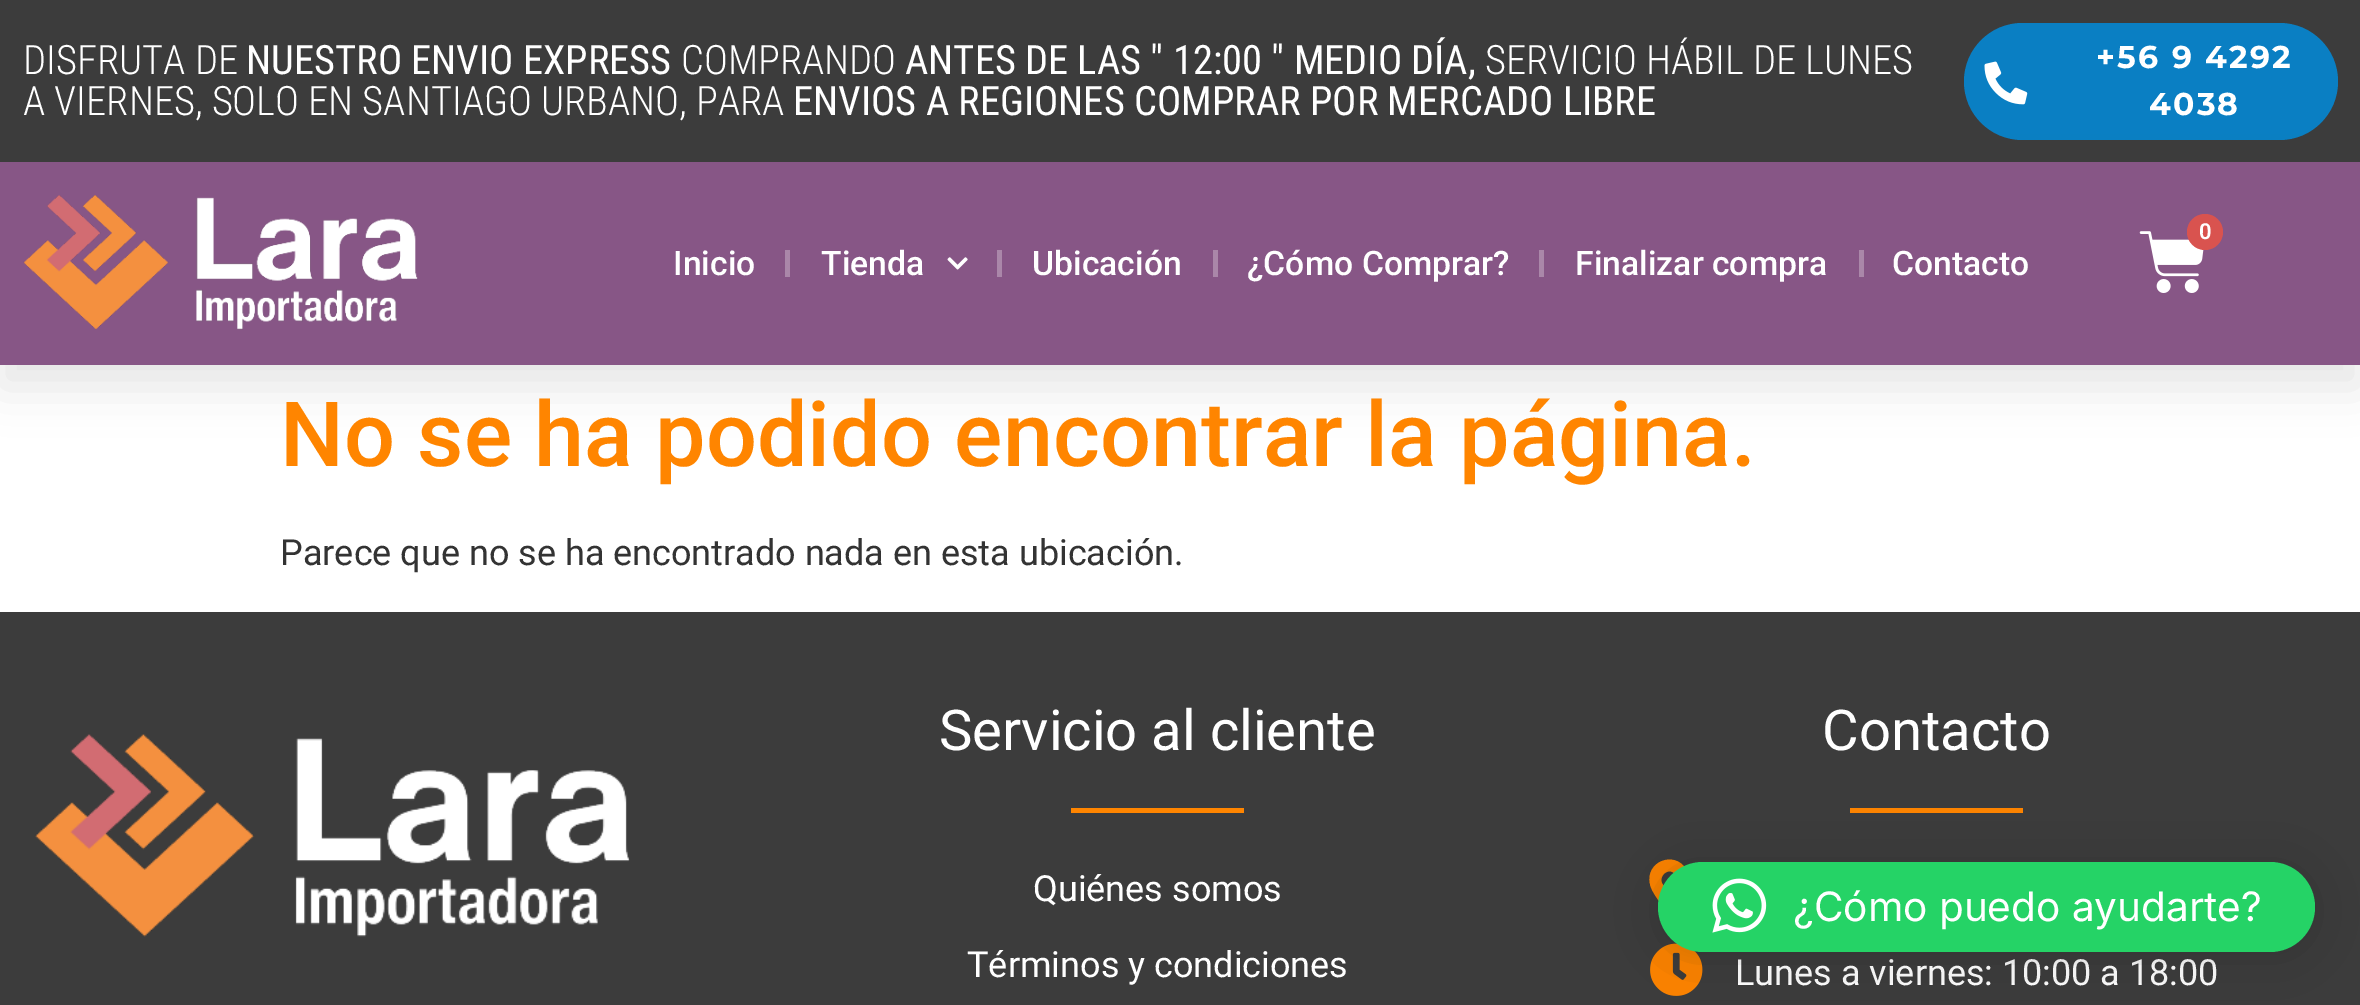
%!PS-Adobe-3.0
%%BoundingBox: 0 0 2360 1005
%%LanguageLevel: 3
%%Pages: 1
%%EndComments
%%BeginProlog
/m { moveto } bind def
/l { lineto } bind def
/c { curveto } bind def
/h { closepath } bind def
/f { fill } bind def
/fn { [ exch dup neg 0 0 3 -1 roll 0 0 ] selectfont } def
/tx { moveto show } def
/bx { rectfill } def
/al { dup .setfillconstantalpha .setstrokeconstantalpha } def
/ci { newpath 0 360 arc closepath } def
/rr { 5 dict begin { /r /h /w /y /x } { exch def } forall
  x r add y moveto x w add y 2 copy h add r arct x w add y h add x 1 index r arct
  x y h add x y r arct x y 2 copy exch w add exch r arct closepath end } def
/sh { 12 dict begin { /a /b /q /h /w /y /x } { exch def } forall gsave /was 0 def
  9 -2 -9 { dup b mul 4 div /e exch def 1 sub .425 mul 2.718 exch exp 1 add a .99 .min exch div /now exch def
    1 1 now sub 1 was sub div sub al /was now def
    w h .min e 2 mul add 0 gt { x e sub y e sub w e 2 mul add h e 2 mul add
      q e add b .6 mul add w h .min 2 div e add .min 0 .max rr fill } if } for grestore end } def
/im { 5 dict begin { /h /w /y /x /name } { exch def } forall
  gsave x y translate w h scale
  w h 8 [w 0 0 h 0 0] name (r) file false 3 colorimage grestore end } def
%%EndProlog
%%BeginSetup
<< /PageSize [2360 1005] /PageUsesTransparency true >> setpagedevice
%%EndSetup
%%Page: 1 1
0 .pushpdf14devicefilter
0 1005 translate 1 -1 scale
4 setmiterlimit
1 setgray
0 0 2360 1005 bx
0.235 setgray
0 0 2360 162 bx
/RobotoCondensed-Light 40.5 fn
1 setgray
(DISFRUTA DE) 23 74 tx
/RobotoCondensed-Regular 40.5 fn
(NUESTRO ENVIO EXPRESS) 246 74 tx
/RobotoCondensed-Light 40.5 fn
(COMPRANDO) 681 74 tx
/RobotoCondensed-Regular 40.5 fn
(ANTES DE LAS " 12:00 " MEDIO DÍA,) 905 74 tx
/RobotoCondensed-Light 40.5 fn
(SERVICIO HÁBIL DE LUNES) 1485 74 tx
(A VIERNES, SOLO EN SANTIAGO URBANO, PARA) 23 115 tx
/RobotoCondensed-Regular 40.5 fn
(ENVIOS A REGIONES COMPRAR POR MERCADO LIBRE) 793 115 tx
0.039 0.498 0.765 setrgbcolor
1964 23 374 117 58.5 rr f
(image0.raw) 1984 61 44 44 im
/Montserrat-Bold 31.5 fn
1 setgray
2096 68 m 2.25 0 (+56 9 4292) ashow
2149 115 m 2.25 0 (4038) ashow
0 setgray
0 185 2360 202 0 22.5 0.1 sh
0.529 0.337 0.525 setrgbcolor
0 162 2360 203 bx
(image1.raw) 23 195 395 135 im
(image2.raw) 2139 231 65 62 im
0.851 0.325 0.31 setrgbcolor
2205 232 18 ci f
/Roboto-SemiBold 22 fn
1 setgray
(0) 2199 239 tx
/Roboto-Medium 33.75 fn
(Inicio) 673 275 tx
0.667 0.529 0.663 setrgbcolor
785 250 5 27 bx
1 setgray
(Tienda) 821 275 tx
(image3.raw) 947 257 21 13 im
0.667 0.529 0.663 setrgbcolor
997 250 5 27 bx
1 setgray
(Ubicación) 1032 275 tx
0.667 0.529 0.663 setrgbcolor
1213 250 5 27 bx
1 setgray
(¿Cómo Comprar?) 1247 275 tx
0.667 0.529 0.663 setrgbcolor
1539 250 5 27 bx
1 setgray
(Finalizar compra) 1575 275 tx
0.667 0.529 0.663 setrgbcolor
1859 250 5 27 bx
1 setgray
(Contacto) 1892 275 tx
/Roboto-Medium 90 fn
1 0.522 0 setrgbcolor
(No se ha podido encontrar la página.) 280 466 tx
/Roboto-Regular 36 fn
0.2 setgray
(Parece que no se ha encontrado nada en esta ubicación.) 280 565 tx
0.235 setgray
0 612 2360 393 bx
(image4.raw) 35 734 595 203 im
/Roboto-Regular 56.25 fn
1 setgray
(Servicio al cliente) 939 750 tx
1 0.522 0 setrgbcolor
1071 808 173 5 bx
/Roboto-Regular 36 fn
1 setgray
(Quiénes somos) 1033 901 tx
(Términos y condiciones) 967 977 tx
/Roboto-Regular 56.25 fn
(Contacto) 1822 750 tx
1 0.522 0 setrgbcolor
1850 808 173 5 bx
1667 912 m 1663 906 1651 892 1650 884 c 1645 862 1674 850 1686 869 c 1696 882 1685 893 1677 904 c 1671 913 l 1670 914 1668 913 1667 912 c h 1664 886 m 1671 894 1683 882 1675 874 c 1668 866 1656 878 1664 886 c h f
(image5.raw) 1650 943 53 53 im
/Roboto-Regular 36 fn
1 setgray
(Lunes a viernes: 10:00 a 18:00) 1735 985 tx
0 setgray
1658 866 657 90 45 36 0.16 sh
1658 864 657 90 45 7 0.06 sh
0.145 0.827 0.4 setrgbcolor
1658 862 657 90 45 rr f
(image6.raw) 1712 878 55 55 im
/Inter-Regular 40.5 fn
1 setgray
(¿Cómo puedo ayudarte?) 1793 921 tx
.poppdf14devicefilter showpage
%%EOF
